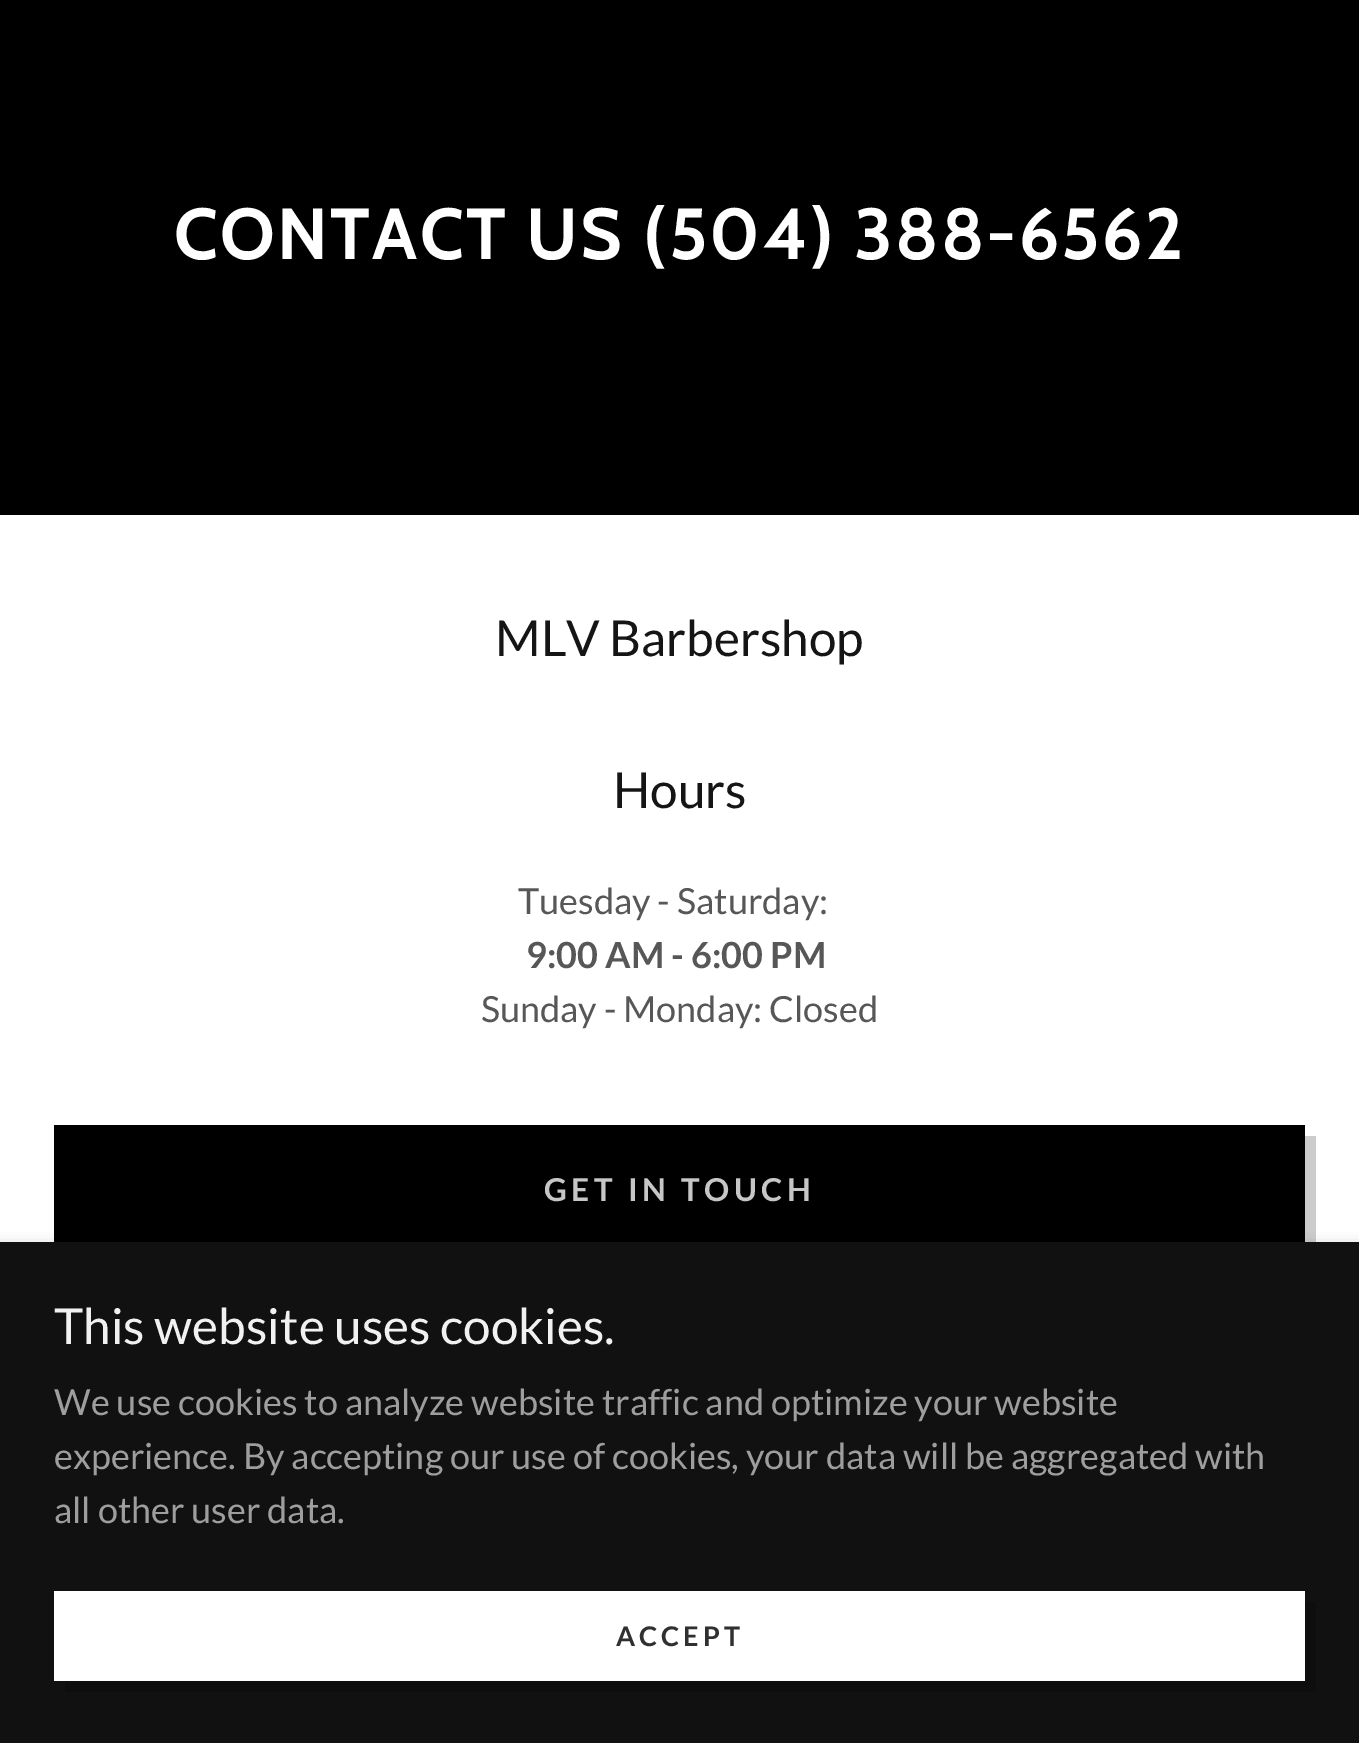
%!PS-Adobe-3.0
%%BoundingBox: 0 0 1359 1743
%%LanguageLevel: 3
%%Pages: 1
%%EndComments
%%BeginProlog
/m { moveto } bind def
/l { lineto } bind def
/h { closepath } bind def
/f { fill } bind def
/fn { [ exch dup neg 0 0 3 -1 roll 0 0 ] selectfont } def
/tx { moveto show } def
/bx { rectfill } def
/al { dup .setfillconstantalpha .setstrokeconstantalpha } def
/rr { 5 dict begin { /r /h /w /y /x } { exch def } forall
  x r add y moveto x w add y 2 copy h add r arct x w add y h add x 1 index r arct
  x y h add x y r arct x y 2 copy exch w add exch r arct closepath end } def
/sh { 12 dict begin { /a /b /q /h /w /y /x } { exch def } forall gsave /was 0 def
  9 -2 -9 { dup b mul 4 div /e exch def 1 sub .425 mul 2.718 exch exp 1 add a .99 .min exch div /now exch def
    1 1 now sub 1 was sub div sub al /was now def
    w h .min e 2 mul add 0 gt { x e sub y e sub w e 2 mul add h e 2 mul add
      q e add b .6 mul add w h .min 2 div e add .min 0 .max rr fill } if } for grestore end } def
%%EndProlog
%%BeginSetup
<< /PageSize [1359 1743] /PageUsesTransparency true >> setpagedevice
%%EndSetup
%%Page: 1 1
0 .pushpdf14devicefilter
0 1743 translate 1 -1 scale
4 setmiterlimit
0 setgray
0 0 1359 1743 bx
/Cabin-Bold 72 fn
1 setgray
174 259 m 2.25 0 (CONTACT US \(504\) 388-6562) ashow
0 515 1359 727 bx
/Lato-Regular 49.5 fn
0.082 setgray
(MLV Barbershop) 495 656 tx
(Hours) 613 808 tx
/Lato-Regular 36 fn
0.341 setgray
(Tuesday - Saturday:) 518 914 tx
/Lato-Bold 36 fn
(9:00 AM - 6:00 PM) 526 968 tx
/Lato-Regular 36 fn
(Sunday - Monday: Closed) 481 1022 tx
0 setgray
54 1125 1251 117 bx
0.8 setgray
65 1251 m 65 1262 l 1316 1262 l 1316 1136 l 1305 1136 l 1305 1251 l h f
/Lato-Bold 31.5 fn
0.776 setgray
544 1201 m 4.5 0 (GET IN TOUCH) ashow
0 setgray
0 1247 1359 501 0 7 0.3 sh
0.067 setgray
0 1242 1359 501 bx
/Lato-Regular 49.5 fn
0.945 setgray
(This website uses cookies.) 54 1344 tx
/Lato-Regular 36 fn
0.62 setgray
(We use cookies to analyze website traffic and optimize your website) 54 1415 tx
(experience. By accepting our use of cookies, your data will be aggregated with) 54 1469 tx
(all other user data.) 54 1523 tx
1 setgray
54 1591 1251 90 bx
0.055 setgray
65 1681 m 65 1692 l 1316 1692 l 1316 1602 l 1305 1602 l 1305 1681 l h f
/Lato-Bold 27 fn
0.188 setgray
616 1646 m 4 0 (ACCEPT) ashow
.poppdf14devicefilter showpage
%%EOF
